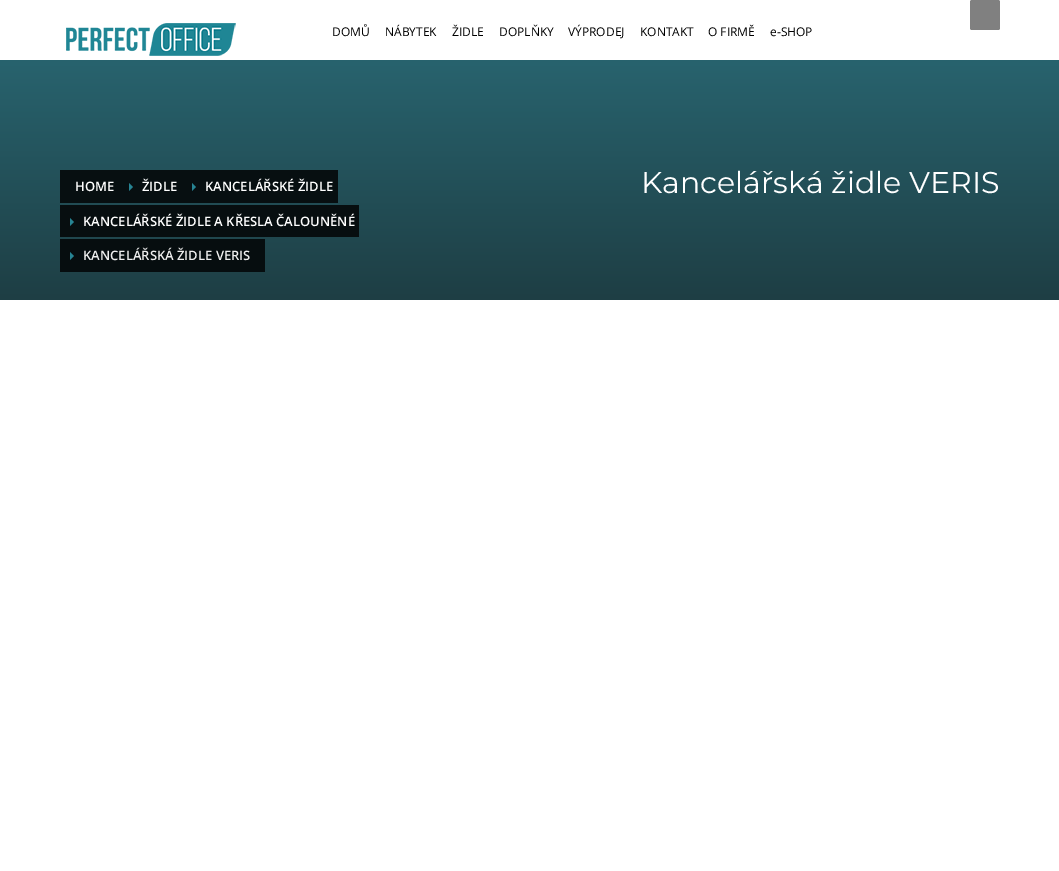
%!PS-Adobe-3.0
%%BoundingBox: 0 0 1059 871
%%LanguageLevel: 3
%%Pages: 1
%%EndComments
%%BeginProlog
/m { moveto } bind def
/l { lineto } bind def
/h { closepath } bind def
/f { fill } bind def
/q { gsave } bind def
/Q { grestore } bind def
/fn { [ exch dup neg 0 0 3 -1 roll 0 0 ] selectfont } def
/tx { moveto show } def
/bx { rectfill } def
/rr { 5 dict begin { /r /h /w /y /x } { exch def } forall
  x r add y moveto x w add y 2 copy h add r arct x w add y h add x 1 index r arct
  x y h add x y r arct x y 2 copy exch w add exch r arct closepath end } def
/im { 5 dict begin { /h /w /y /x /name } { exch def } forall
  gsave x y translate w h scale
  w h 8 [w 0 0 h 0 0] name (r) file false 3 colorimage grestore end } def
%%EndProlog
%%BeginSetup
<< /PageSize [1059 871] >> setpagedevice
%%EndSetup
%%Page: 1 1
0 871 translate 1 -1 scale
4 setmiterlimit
1 setgray
0 0 1059 871 bx
0.502 setgray
970 0 30 30 2 rr f
(image0.raw) 66 23 170 33 im
/OpenSans-Regular 12 fn
0 setgray
(DOMŮ) 332 36 tx
(NÁBYTEK) 385 36 tx
(ŽIDLE) 452 36 tx
(DOPLŇKY) 499 36 tx
(VÝPRODEJ) 568 36 tx
(KONTAKT) 640 36 tx
(O FIRMĚ) 708 36 tx
(e-SHOP) 770 36 tx
q 0 60 m 1059 60 l 1059 300 l 0 300 l h clip newpath
<< /ShadingType 2 /ColorSpace /DeviceRGB /Coords [530 0 530 300] /Extend [true true] /Function << /FunctionType 2 /Domain [0 1] /C0 [0.169 0.424 0.471] /C1 [0.118 0.243 0.267] /N 1 >> >> shfill Q
q 60 239 m 265 239 l 265 272 l 60 272 l h clip newpath
<< /ShadingType 2 /ColorSpace /DeviceRGB /Coords [530 0 530 300] /Extend [true true] /Function << /FunctionType 2 /Domain [0 1] /C0 [0.035 0.086 0.094] /C1 [0.024 0.047 0.055] /N 1 >> >> shfill Q
q 60 205 m 359 205 l 359 237 l 60 237 l h clip newpath
<< /ShadingType 2 /ColorSpace /DeviceRGB /Coords [530 0 530 300] /Extend [true true] /Function << /FunctionType 2 /Domain [0 1] /C0 [0.035 0.086 0.094] /C1 [0.024 0.047 0.055] /N 1 >> >> shfill Q
q 182 170 m 338 170 l 338 203 l 182 203 l h clip newpath
<< /ShadingType 2 /ColorSpace /DeviceRGB /Coords [530 0 530 300] /Extend [true true] /Function << /FunctionType 2 /Domain [0 1] /C0 [0.035 0.086 0.094] /C1 [0.024 0.047 0.055] /N 1 >> >> shfill Q
q 119 170 m 182 170 l 182 203 l 119 203 l h clip newpath
<< /ShadingType 2 /ColorSpace /DeviceRGB /Coords [530 0 530 300] /Extend [true true] /Function << /FunctionType 2 /Domain [0 1] /C0 [0.035 0.086 0.094] /C1 [0.024 0.047 0.055] /N 1 >> >> shfill Q
q 60 170 m 119 170 l 119 203 l 60 203 l h clip newpath
<< /ShadingType 2 /ColorSpace /DeviceRGB /Coords [530 0 530 300] /Extend [true true] /Function << /FunctionType 2 /Domain [0 1] /C0 [0.035 0.086 0.094] /C1 [0.024 0.047 0.055] /N 1 >> >> shfill Q
/OpenSans-SemiBold 13 fn
1 setgray
(HOME) 75 191 tx
0.153 0.518 0.576 setrgbcolor
129 191 m 129 183 l 133 187 l h f
1 setgray
(ŽIDLE) 142 191 tx
0.153 0.518 0.576 setrgbcolor
192 191 m 192 183 l 196 187 l h f
1 setgray
(KANCELÁŘSKÉ ŽIDLE) 205 191 tx
0.153 0.518 0.576 setrgbcolor
70 226 m 70 218 l 74 222 l h f
1 setgray
(KANCELÁŘSKÉ ŽIDLE A KŘESLA ČALOUNĚNÉ) 83 226 tx
0.153 0.518 0.576 setrgbcolor
70 260 m 70 252 l 74 256 l h f
0.933 setgray
(KANCELÁŘSKÁ ŽIDLE VERIS) 83 260 tx
/Montserrat-Regular 30 fn
1 setgray
(Kancelářská židle VERIS) 641 193 tx
showpage
%%EOF
